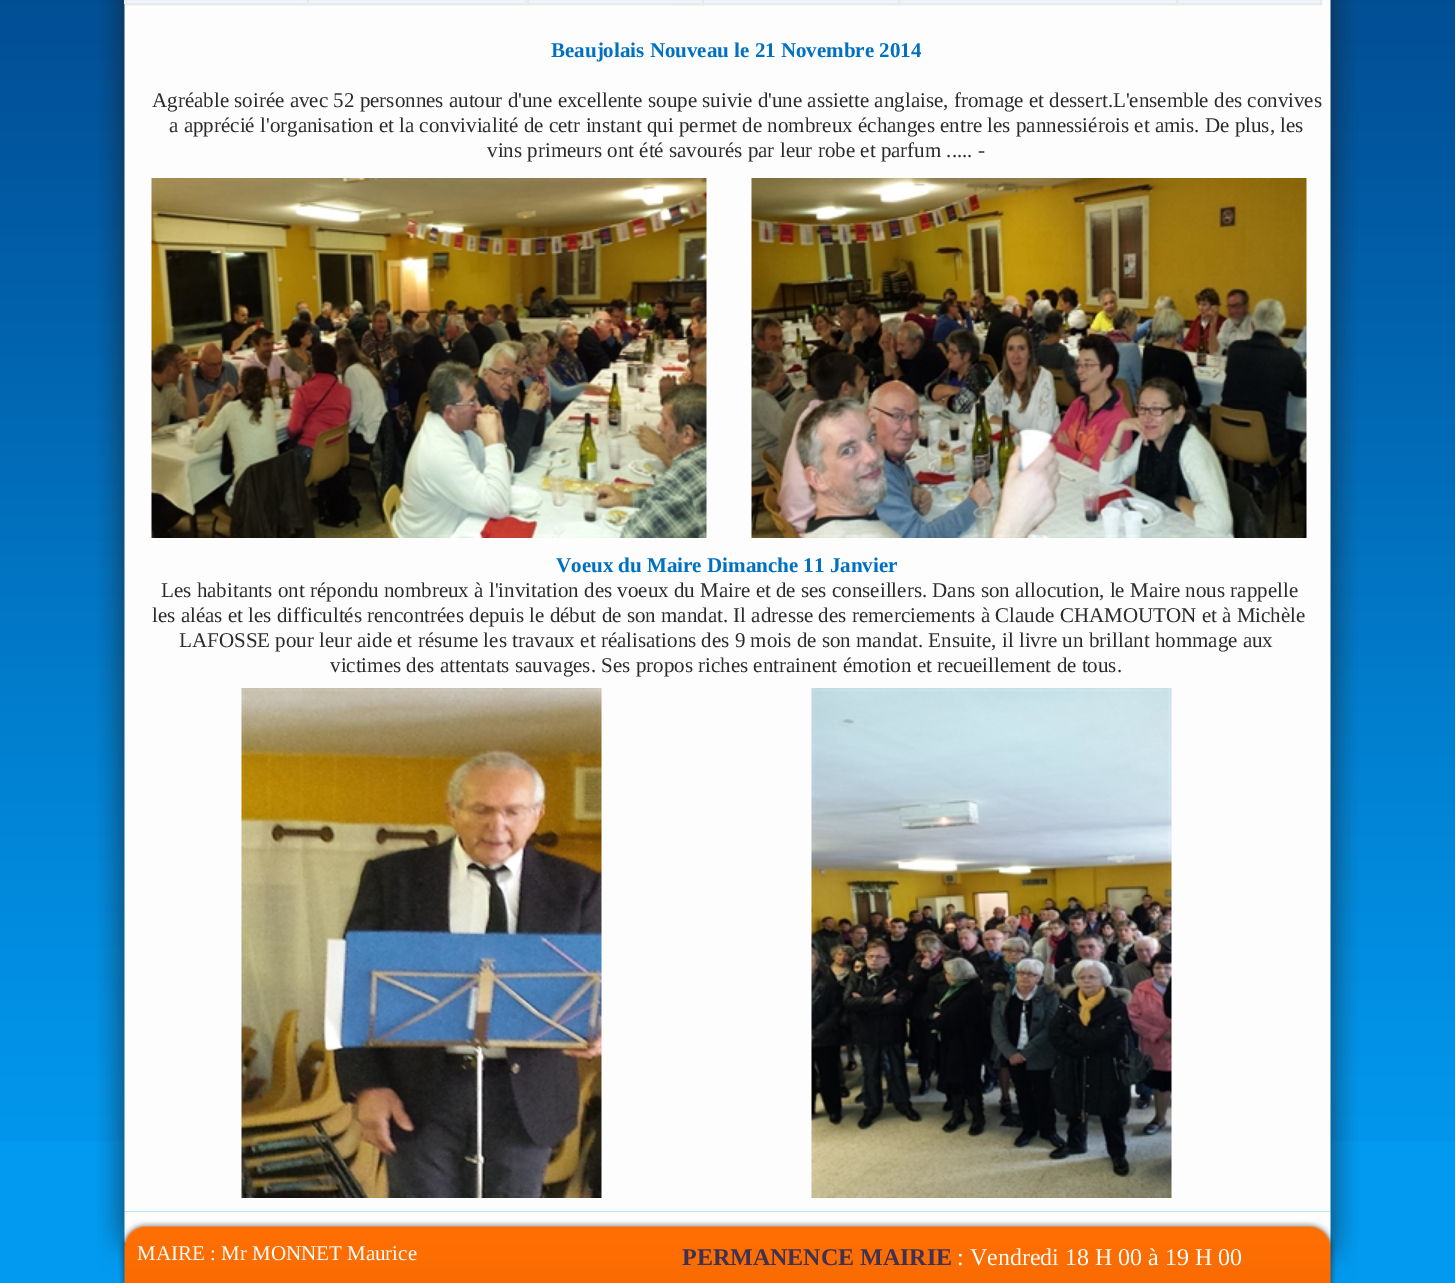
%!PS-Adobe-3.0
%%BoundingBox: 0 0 1455 1283
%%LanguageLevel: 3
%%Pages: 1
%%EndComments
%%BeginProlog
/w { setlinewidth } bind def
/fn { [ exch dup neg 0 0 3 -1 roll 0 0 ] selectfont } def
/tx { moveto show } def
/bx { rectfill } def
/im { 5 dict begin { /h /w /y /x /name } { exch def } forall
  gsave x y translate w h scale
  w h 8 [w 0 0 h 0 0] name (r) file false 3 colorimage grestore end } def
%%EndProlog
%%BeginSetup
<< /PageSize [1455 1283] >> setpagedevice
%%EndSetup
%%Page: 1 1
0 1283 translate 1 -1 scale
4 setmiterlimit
0.004 0.604 0.941 setrgbcolor
0 0 1455 1283 bx
(image0.raw) 0 0 1455 1141 im
(image1.raw) 97 0 1261 1212 im
0.941 0.965 0.984 setrgbcolor
301 0 226 3 bx
0.914 setgray
2 w
303 -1 223 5 rectstroke
0.941 0.965 0.984 setrgbcolor
124 0 185 4 bx
0.914 setgray
126 -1 182 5 rectstroke
0.937 0.961 0.984 setrgbcolor
1171 0 151 3 bx
0.914 setgray
1173 -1 148 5 rectstroke
0.937 0.961 0.984 setrgbcolor
892 0 286 3 bx
0.914 setgray
894 -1 283 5 rectstroke
0.937 0.961 0.984 setrgbcolor
704 0 196 3 bx
0.914 setgray
673 -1 226 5 rectstroke
0.937 0.961 0.984 setrgbcolor
526 0 178 4 bx
0.914 setgray
528 -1 175 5 rectstroke
/LiberationSerif-Bold 21 fn
0 0.439 0.753 setrgbcolor
(Beaujolais Nouveau le 21 Novembre 2014) 551 57 tx
/LiberationSerif-Regular 21 fn
0.169 setgray
(Agréable soirée avec 52 personnes autour d'une excellente soupe suivie d'une assiette anglaise, fromage et dessert.L'ensemble des convives) 152 107 tx
(a apprécié l'organisation et la convivialité de cetr instant qui permet de nombreux échanges entre les pannessiérois et amis. De plus, les) 169 132 tx
(vins primeurs ont été savourés par leur robe et parfum ..... -) 487 157 tx
(image2.raw) 151 178 556 360 im
(image3.raw) 751 178 556 360 im
/LiberationSerif-Bold 21 fn
0 0.439 0.753 setrgbcolor
(Voeux du Maire Dimanche 11 Janvier) 556 572 tx
/LiberationSerif-Regular 21 fn
0.169 setgray
(Les habitants ont répondu nombreux à l'invitation des voeux du Maire et de ses conseillers. Dans son allocution, le Maire nous rappelle) 161 597 tx
(les aléas et les difficultés rencontrées depuis le début de son mandat. Il adresse des remerciements à Claude CHAMOUTON et à Michèle) 152 622 tx
(LAFOSSE pour leur aide et résume les travaux et réalisations des 9 mois de son mandat. Ensuite, il livre un brillant hommage aux) 179 647 tx
(victimes des attentats sauvages. Ses propos riches entrainent émotion et recueillement de tous.) 330 672 tx
(image4.raw) 241 688 361 510 im
(image5.raw) 811 688 361 510 im
(image6.raw) 97 1211 1261 72 im
0.992 setgray
(MAIRE : Mr MONNET Maurice) 137 1260 tx
/LiberationSerif-Bold 24 fn
0.247 0.192 0.318 setrgbcolor
(PERMANENCE MAIRIE) 682 1265 tx
/LiberationSerif-Regular 24 fn
0.992 setgray
(: Vendredi 18 H 00 à 19 H 00) 957 1265 tx
showpage
%%EOF
